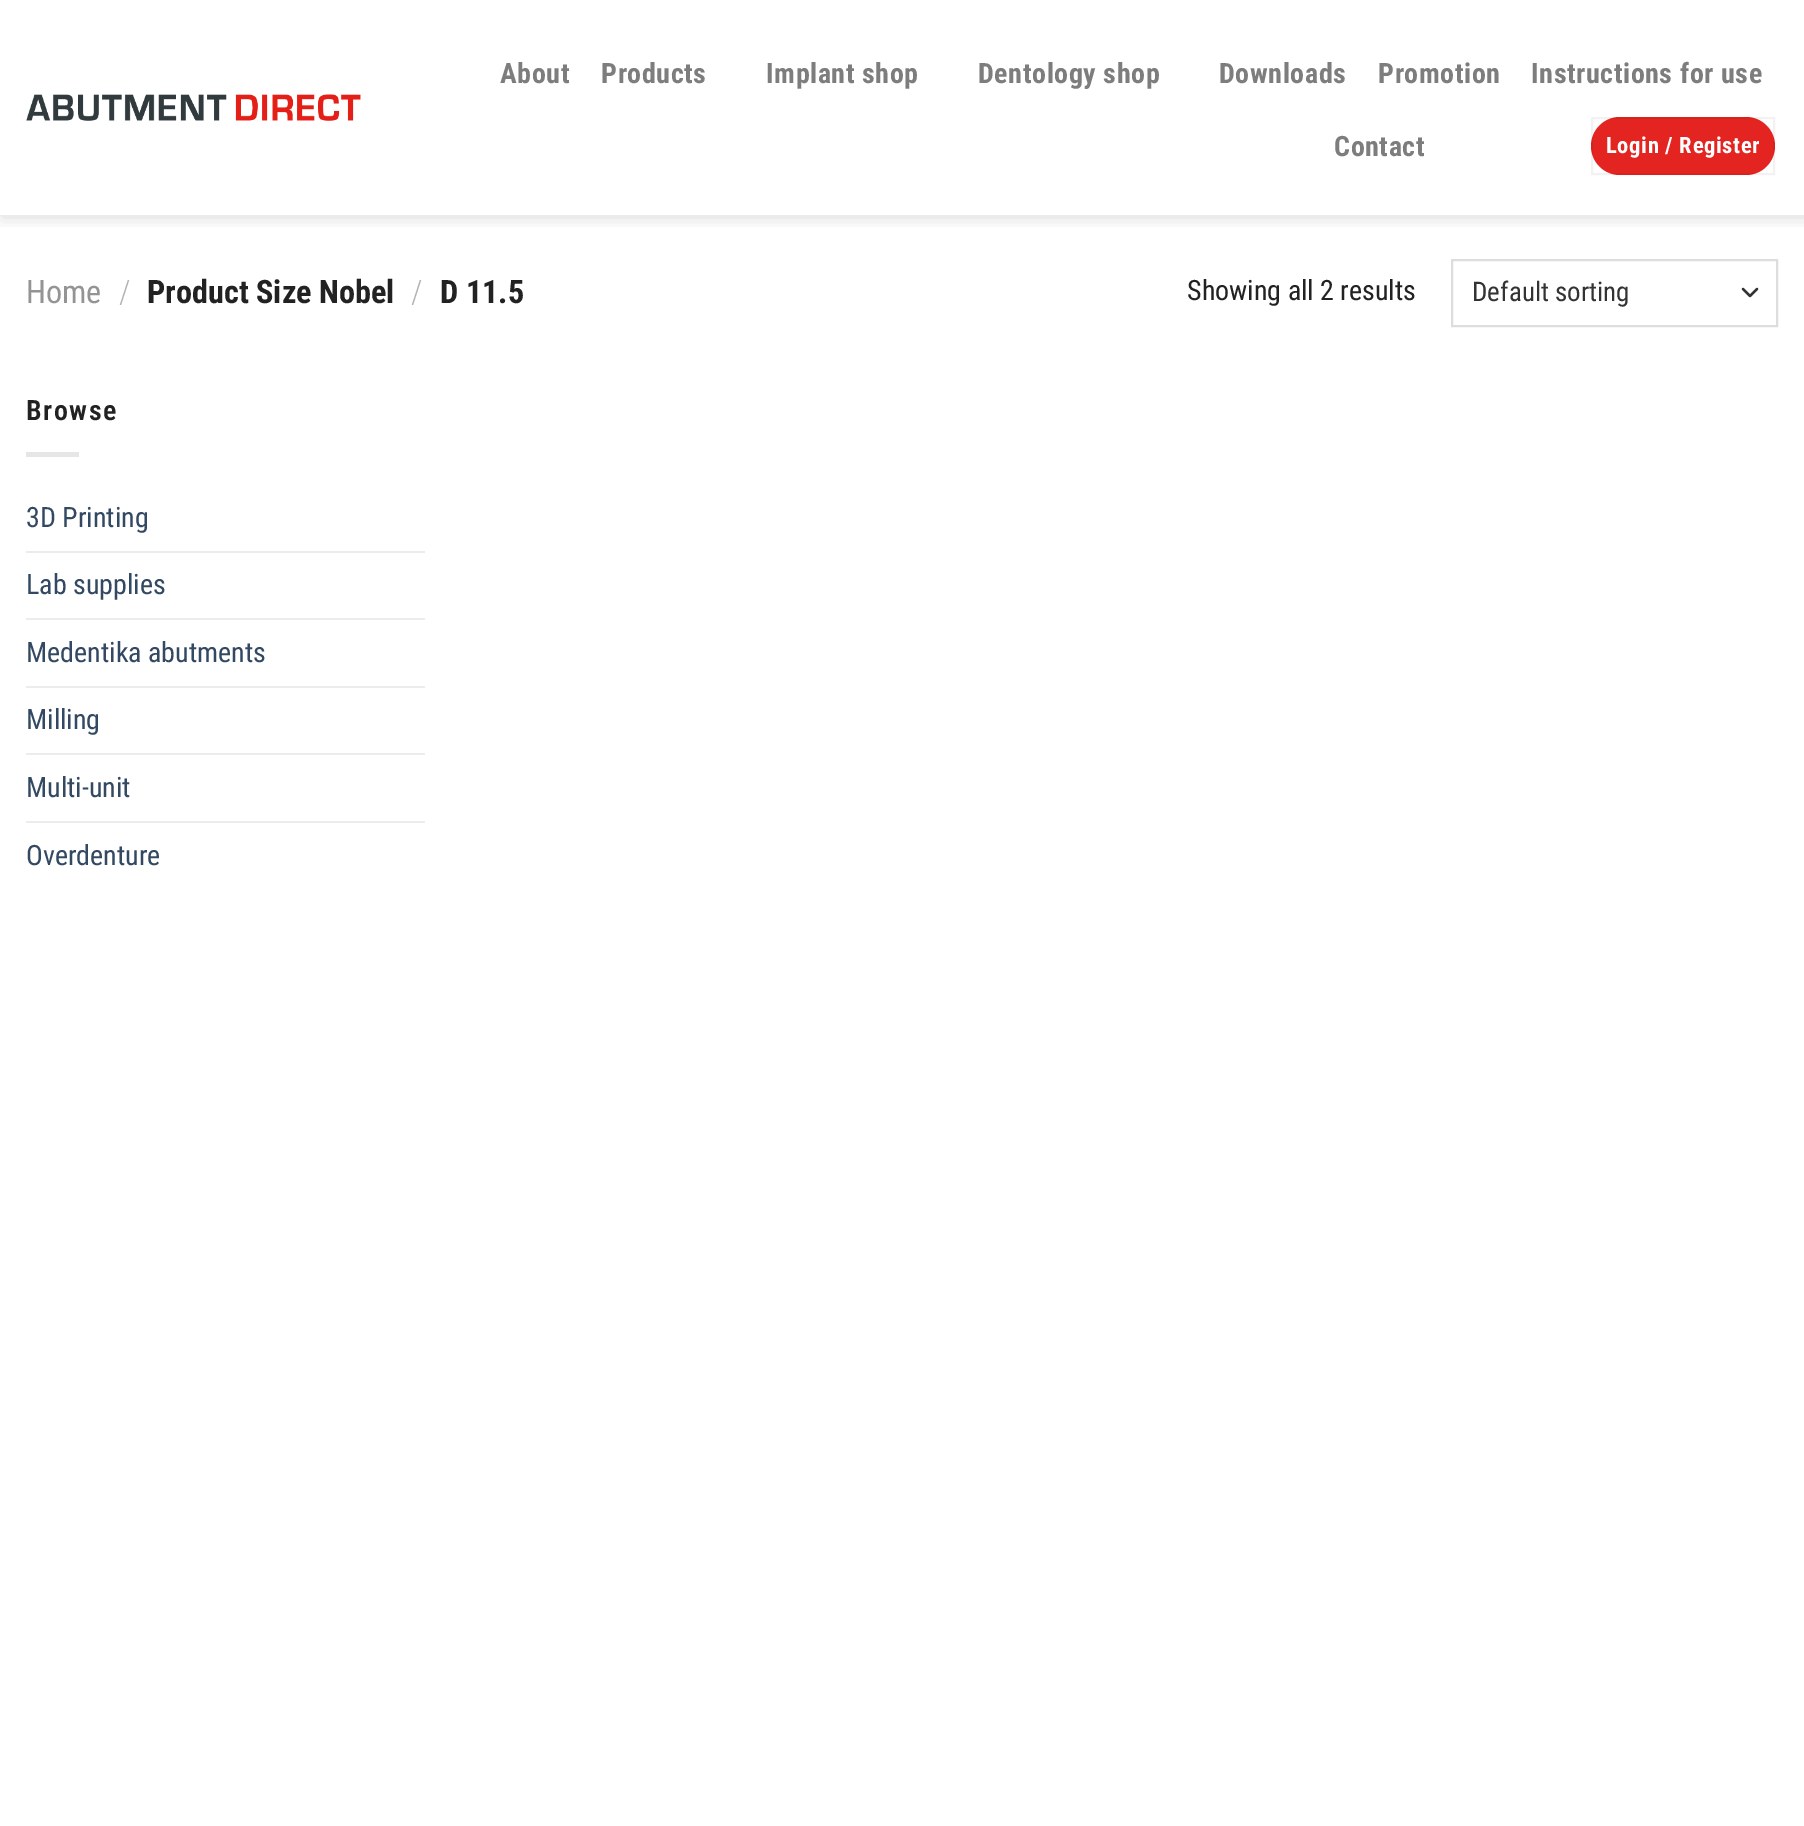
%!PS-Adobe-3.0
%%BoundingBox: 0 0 1804 1826
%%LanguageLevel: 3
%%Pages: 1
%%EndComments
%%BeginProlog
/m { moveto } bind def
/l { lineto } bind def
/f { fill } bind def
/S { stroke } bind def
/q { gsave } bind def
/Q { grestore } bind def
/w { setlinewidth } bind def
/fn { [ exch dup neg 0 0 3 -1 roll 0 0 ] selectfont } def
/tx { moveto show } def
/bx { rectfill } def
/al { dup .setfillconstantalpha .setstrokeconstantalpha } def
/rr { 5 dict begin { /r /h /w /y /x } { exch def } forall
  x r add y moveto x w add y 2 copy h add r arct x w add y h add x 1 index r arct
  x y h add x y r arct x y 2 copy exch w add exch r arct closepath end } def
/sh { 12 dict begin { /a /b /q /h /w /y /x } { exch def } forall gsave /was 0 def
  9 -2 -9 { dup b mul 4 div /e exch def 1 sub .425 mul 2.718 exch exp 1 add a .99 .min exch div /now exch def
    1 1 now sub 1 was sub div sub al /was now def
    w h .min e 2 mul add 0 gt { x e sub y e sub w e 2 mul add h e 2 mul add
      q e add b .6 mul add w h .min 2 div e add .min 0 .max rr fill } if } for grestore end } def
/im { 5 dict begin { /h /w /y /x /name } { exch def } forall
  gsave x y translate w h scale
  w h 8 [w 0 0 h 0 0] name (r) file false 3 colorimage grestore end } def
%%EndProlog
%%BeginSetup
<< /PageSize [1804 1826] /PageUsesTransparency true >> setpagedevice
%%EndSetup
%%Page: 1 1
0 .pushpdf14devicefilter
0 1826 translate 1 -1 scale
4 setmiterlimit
1 setgray
0 0 1804 1826 bx
q
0 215 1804 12 rectclip
0 setgray
2 2 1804 215 0 9 0.15 sh
Q
(image0.raw) 26 94 335 27 im
/RobotoCondensed-Bold 28 fn
0.49 setgray
500 83 m 0.6 0 (About) ashow
601 83 m 0.6 0 (Products) ashow
766 83 m 0.6 0 (Implant shop) ashow
978 83 m 0.6 0 (Dentology shop) ashow
1219 83 m 0.6 0 (Downloads) ashow
1378 83 m 0.6 0 (Promotion) ashow
1531 83 m 0.6 0 (Instructions for use) ashow
1334 156 m 0.6 0 (Contact) ashow
0.89 0.141 0.125 setrgbcolor
1591 117 184 58 29 rr f
0.05 al
0 setgray
2 w
1592 118 182 56 rectstroke
/RobotoCondensed-Bold 22.5 fn
1 al
1 setgray
1606 153 m 0.7 0 (Login / Register) ashow
/RobotoCondensed-Regular 32.25 fn
0.58 setgray
(Home) 26 303 tx
/RobotoCondensed-Light 32.25 fn
0.698 setgray
(/) 119 303 tx
/RobotoCondensed-Bold 32.25 fn
0.133 setgray
(Product Size Nobel) 147 303 tx
/RobotoCondensed-Light 32.25 fn
0.698 setgray
(/) 411 303 tx
/RobotoCondensed-Bold 32.25 fn
0.133 setgray
(D 11.5) 440 303 tx
/RobotoCondensed-Regular 28 fn
(Showing all 2 results) 1187 300 tx
0.2 setgray
2.3 w
1 setlinecap
1 setlinejoin
1743 289 m 1750 296 l 1757 289 l S
0.867 setgray
2 w
0 setlinecap
0 setlinejoin
1452 260 325 66 rectstroke
/RobotoCondensed-Regular 27 fn
0.2 setgray
(Default sorting) 1472 301 tx
/RobotoCondensed-SemiBold 28 fn
0.133 setgray
26 420 m 1.5 0 (Browse) ashow
0.902 setgray
26 452 53 5 bx
/RobotoCondensed-Regular 28 fn
0.2 0.282 0.384 setrgbcolor
(3D Printing) 26 527 tx
0.925 setgray
26 551 399 2 bx
0.2 0.282 0.384 setrgbcolor
(Lab supplies) 26 594 tx
0.925 setgray
26 618 399 2 bx
0.2 0.282 0.384 setrgbcolor
(Medentika abutments) 26 662 tx
0.925 setgray
26 686 399 2 bx
0.2 0.282 0.384 setrgbcolor
(Milling) 26 729 tx
0.925 setgray
26 753 399 2 bx
0.2 0.282 0.384 setrgbcolor
(Multi-unit) 26 797 tx
0.925 setgray
26 821 399 2 bx
0.2 0.282 0.384 setrgbcolor
(Overdenture) 26 865 tx
.poppdf14devicefilter showpage
%%EOF
